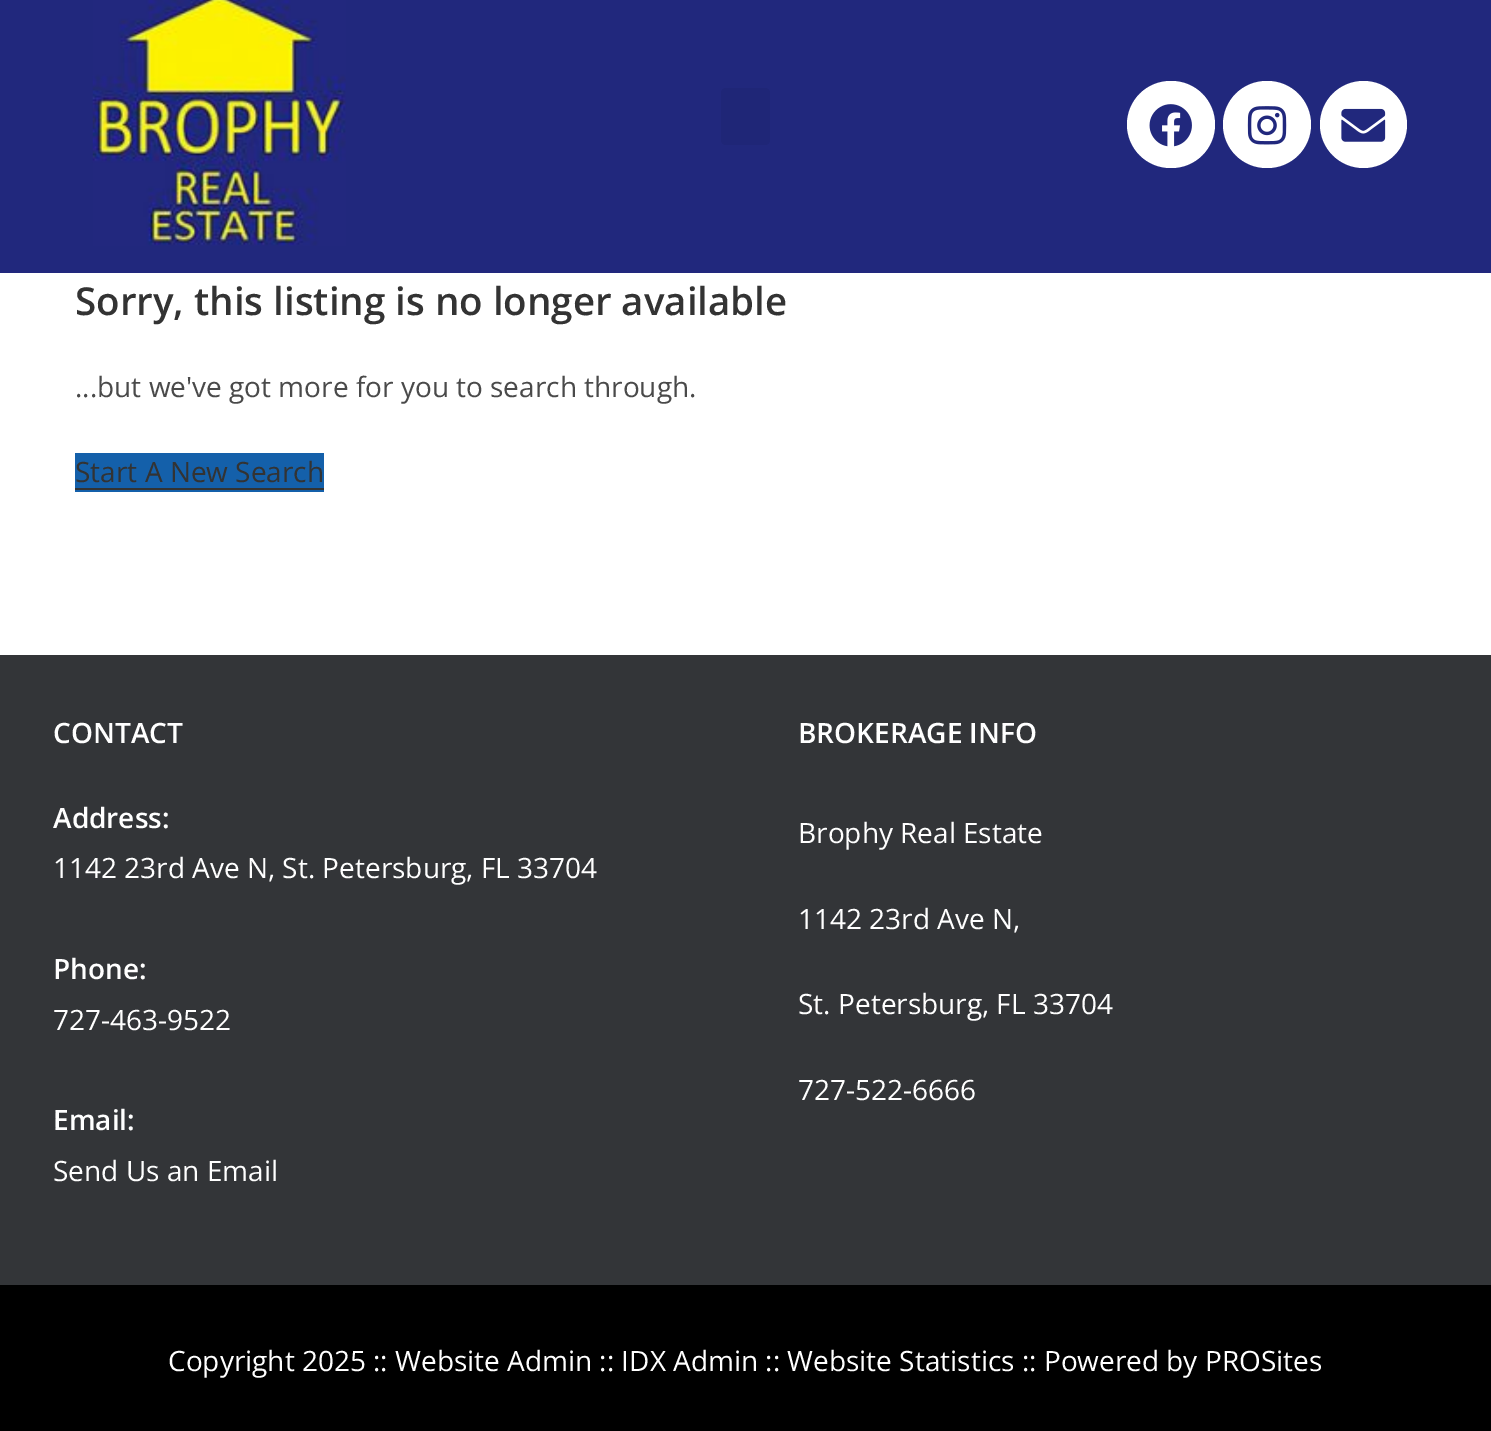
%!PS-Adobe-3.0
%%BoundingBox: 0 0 1491 1431
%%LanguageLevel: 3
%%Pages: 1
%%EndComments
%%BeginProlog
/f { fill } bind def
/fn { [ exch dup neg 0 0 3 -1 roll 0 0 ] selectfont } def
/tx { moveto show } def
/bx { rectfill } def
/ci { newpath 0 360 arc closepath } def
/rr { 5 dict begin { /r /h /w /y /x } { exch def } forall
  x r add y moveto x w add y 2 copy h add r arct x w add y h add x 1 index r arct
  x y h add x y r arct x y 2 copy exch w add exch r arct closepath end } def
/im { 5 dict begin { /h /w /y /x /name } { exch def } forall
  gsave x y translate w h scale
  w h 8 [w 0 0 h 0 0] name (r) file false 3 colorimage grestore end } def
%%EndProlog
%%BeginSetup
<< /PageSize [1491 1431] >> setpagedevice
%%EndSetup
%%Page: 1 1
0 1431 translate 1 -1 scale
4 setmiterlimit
1 setgray
0 0 1491 1431 bx
0.129 0.157 0.49 setrgbcolor
0 0 1491 273 bx
(image0.raw) 92 0 254 246 im
0.122 0.149 0.467 setrgbcolor
721 88 49 57 5 rr f
1 setgray
1127 81 88 87 43.5 rr f
(image1.raw) 1149 104 43 43 im
1223 81 88 87 43.5 rr f
(image2.raw) 1247 106 40 39 im
1363.5 124.5 43.5 ci f
(image3.raw) 1341 108 45 34 im
/OpenSans-SemiBold 38.5 fn
0.2 setgray
(Sorry, this listing is no longer available) 75 315 tx
/OpenSans-Regular 28 fn
0.29 setgray
(...but we've got more for you to search through.) 75 397 tx
0.078 0.376 0.667 setrgbcolor
75 453 249 39 bx
0.2 setgray
(Start A New Search) 75 482 tx
75 488 249 2 bx
0.2 0.208 0.22 setrgbcolor
0 655 1491 630 bx
/OpenSans-SemiBold 28 fn
1 setgray
(CONTACT) 53 743 tx
(Address:) 53 828 tx
/OpenSans-Regular 28 fn
(1142 23rd Ave N, St. Petersburg, FL 33704) 53 878 tx
/OpenSans-SemiBold 28 fn
(Phone:) 53 979 tx
/OpenSans-Regular 28 fn
(727-463-9522) 53 1030 tx
/OpenSans-SemiBold 28 fn
(Email:) 53 1130 tx
/OpenSans-Regular 28 fn
(Send Us an Email) 53 1181 tx
/OpenSans-SemiBold 28 fn
(BROKERAGE INFO) 798 743 tx
/OpenSans-Regular 28 fn
(Brophy Real Estate) 798 843 tx
(1142 23rd Ave N,) 798 929 tx
(St. Petersburg, FL 33704) 798 1014 tx
(727-522-6666) 798 1100 tx
0 setgray
0 1285 1491 146 bx
1 setgray
(Copyright 2025 :: Website Admin :: IDX Admin :: Website Statistics :: Powered by PROSites) 168 1371 tx
showpage
%%EOF
